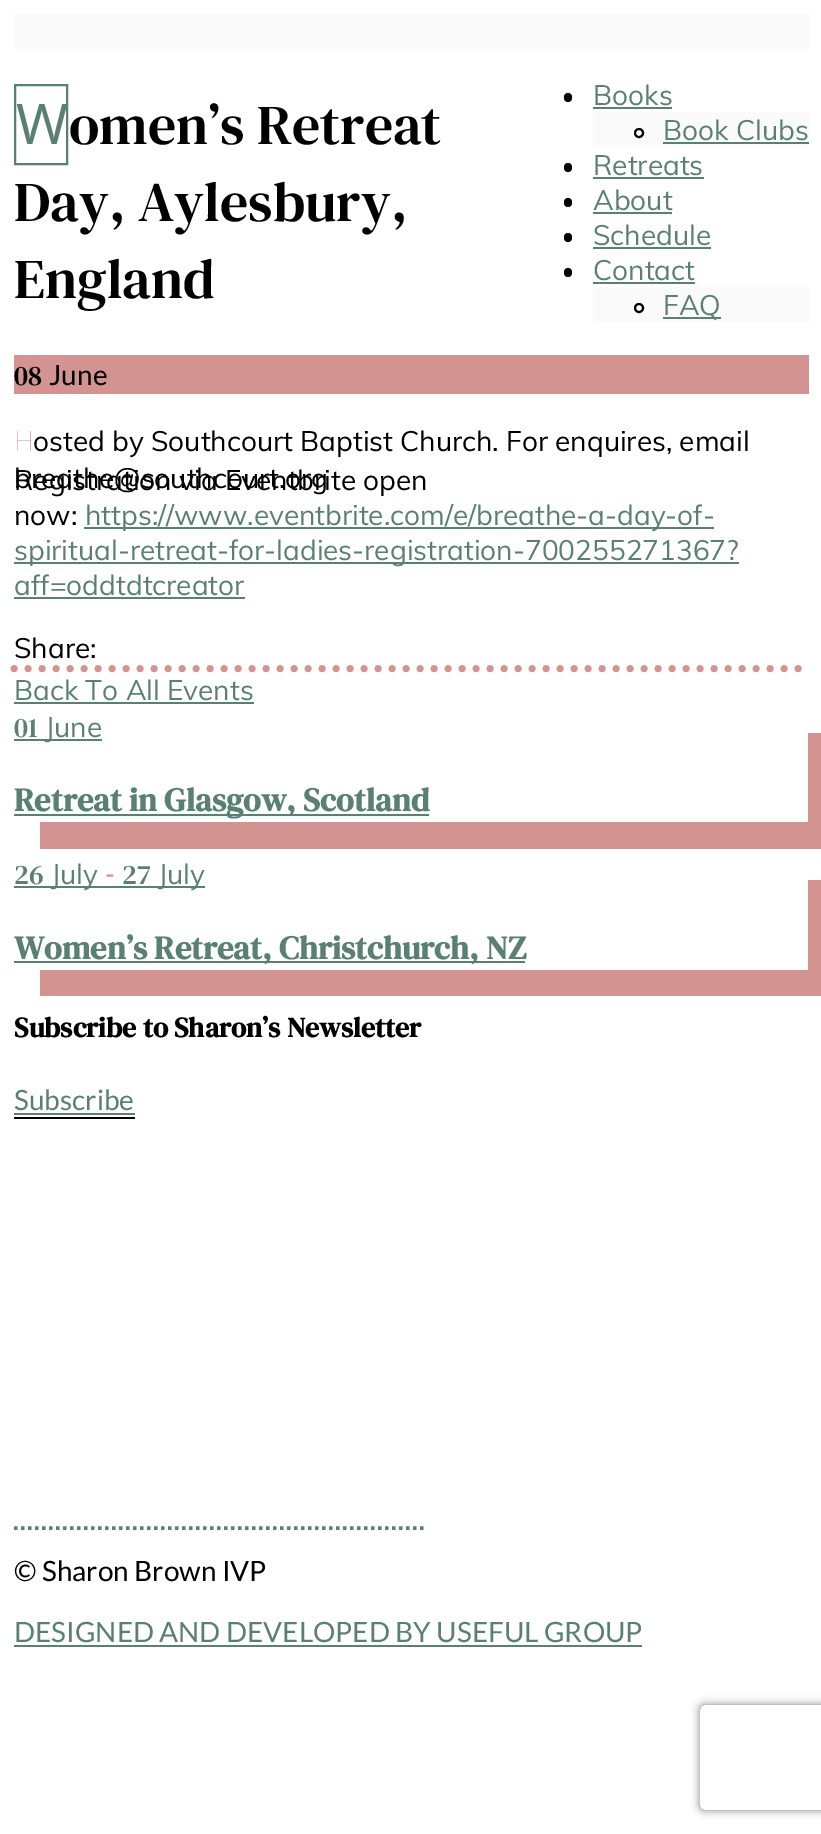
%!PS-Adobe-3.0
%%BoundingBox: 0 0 821 1834
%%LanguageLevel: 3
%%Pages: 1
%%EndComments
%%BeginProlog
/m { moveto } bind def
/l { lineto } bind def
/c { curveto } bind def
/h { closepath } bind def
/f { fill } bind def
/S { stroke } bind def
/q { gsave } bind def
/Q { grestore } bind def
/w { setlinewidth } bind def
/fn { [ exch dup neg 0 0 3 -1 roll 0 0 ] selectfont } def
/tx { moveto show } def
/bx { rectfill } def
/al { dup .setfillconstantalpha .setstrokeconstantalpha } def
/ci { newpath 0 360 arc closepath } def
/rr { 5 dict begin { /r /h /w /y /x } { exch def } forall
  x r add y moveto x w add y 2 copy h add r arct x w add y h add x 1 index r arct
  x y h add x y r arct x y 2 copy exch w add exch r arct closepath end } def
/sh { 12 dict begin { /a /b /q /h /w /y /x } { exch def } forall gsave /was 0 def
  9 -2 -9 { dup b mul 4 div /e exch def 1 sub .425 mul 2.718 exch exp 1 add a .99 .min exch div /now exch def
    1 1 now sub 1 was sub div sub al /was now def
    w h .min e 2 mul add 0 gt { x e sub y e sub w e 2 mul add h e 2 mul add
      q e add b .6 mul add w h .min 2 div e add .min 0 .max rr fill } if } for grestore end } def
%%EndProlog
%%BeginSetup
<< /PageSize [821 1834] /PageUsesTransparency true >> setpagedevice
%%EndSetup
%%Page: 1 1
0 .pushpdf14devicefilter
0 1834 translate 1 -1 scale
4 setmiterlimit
1 setgray
0 0 821 1834 bx
0.98 setgray
14 14 795 35 bx
0 setgray
564 93 8 9 4 rr f
/Muli-Regular 28 fn
0.353 0.502 0.455 setrgbcolor
(Books) 593 105 tx
593 107 79 2 bx
0.98 setgray
593 112 216 35 bx
0 setgray
2 w
639 133 4 ci S
0.353 0.502 0.455 setrgbcolor
(Book Clubs) 663 140 tx
663 142 146 2 bx
0 setgray
564 163 8 9 4 rr f
0.353 0.502 0.455 setrgbcolor
(Retreats) 593 175 tx
593 177 111 2 bx
0 setgray
564 198 8 9 4 rr f
0.353 0.502 0.455 setrgbcolor
(About) 593 210 tx
593 212 79 2 bx
0 setgray
564 233 8 9 4 rr f
0.353 0.502 0.455 setrgbcolor
(Schedule) 593 245 tx
593 247 118 2 bx
0 setgray
564 268 8 9 4 rr f
0.353 0.502 0.455 setrgbcolor
(Contact) 593 280 tx
593 282 102 2 bx
0.98 setgray
593 287 216 35 bx
0 setgray
639 308 4 ci S
0.353 0.502 0.455 setrgbcolor
663 317 58 2 bx
(FAQ) 663 315 tx
15 85 52 79 rectstroke
/NotoSans-Regular 56 fn
(W) 16 144 tx
/DMSerifText-Regular 56 fn
0 setgray
(omen’s Retreat) 69 144 tx
(Day, Aylesbury,) 14 221 tx
(England) 14 298 tx
0.824 0.576 0.569 setrgbcolor
14 355 795 39 bx
/DMSerifText-Regular 28 fn
0 setgray
(08) 14 385 tx
/Lato-Regular 28 fn
(June) 49 385 tx
/NotoSans-Thin 28 fn
0.824 0.576 0.569 setrgbcolor
(H) 14 451 tx
/Muli-Regular 28 fn
0 setgray
(osted by Southcourt Baptist Church. For enquires, email) 33 451 tx
(breathe@southcourt.org) 14 488 tx
(Registration via Eventbrite open) 14 490 tx
(now:) 14 525 tx
0.353 0.502 0.455 setrgbcolor
84 527 630 2 bx
(https://www.eventbrite.com/e/breathe-a-day-of-) 85 525 tx
14 562 725 2 bx
(spiritual-retreat-for-ladies-registration-700255271367?) 14 560 tx
(aff=oddtdtcreator) 14 595 tx
14 597 231 2 bx
0.824 0.576 0.569 setrgbcolor
7 w
1 setlinecap
[0 14] 0 setdash
14 668.5 m 808.5 668.5 l S
0 setgray
(Share:) 14 658 tx
0.353 0.502 0.455 setrgbcolor
(Back To All Events) 14 700 tx
14 702 240 2 bx
0.824 0.576 0.569 setrgbcolor
40 822 m 40 849 l 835 849 l 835 733 l 808 733 l 808 822 l h f
/DMSerifText-Regular 28 fn
0.353 0.502 0.455 setrgbcolor
(01) 14 737 tx
14 739 88 2 bx
/Muli-Regular 28 fn
(June) 45 737 tx
14 814 415 2 bx
/DMSerifText-Bold 32.75 fn
(Retreat in Glasgow, Scotland) 14 811 tx
0.824 0.576 0.569 setrgbcolor
40 970 m 40 996 l 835 996 l 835 880 l 808 880 l 808 970 l h f
/DMSerifText-Regular 28 fn
0.353 0.502 0.455 setrgbcolor
(26) 14 884 tx
14 886 191 2 bx
/Muli-Regular 28 fn
(July) 51 884 tx
/Lato-Regular 28 fn
0.824 0.576 0.569 setrgbcolor
(-) 105 884 tx
/DMSerifText-Regular 28 fn
0.353 0.502 0.455 setrgbcolor
(27) 122 884 tx
/Muli-Regular 28 fn
(July) 158 884 tx
14 961 511 2 bx
/DMSerifText-Bold 32.75 fn
(Women’s Retreat, Christchurch, NZ) 14 959 tx
/DMSerifText-Bold 28 fn
0 setgray
(Subscribe to Sharon’s Newsletter) 14 1037 tx
/Lato-Regular 28 fn
0.353 0.502 0.455 setrgbcolor
(Subscribe) 14 1110 tx
0 setgray
14 1117 121 2 bx
0.353 0.502 0.455 setrgbcolor
14 1113 121 2 bx
3.5 w
0 setlinecap
[3.5 3.5] 0 setdash
14 1528 m 427 1528 l S
0 setgray
(© Sharon Brown IVP) 14 1581 tx
0.353 0.502 0.455 setrgbcolor
(DESIGNED AND DEVELOPED BY USEFUL GROUP) 14 1642 tx
14 1645 628 2 bx
q
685 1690 m 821 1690 l 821 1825 l 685 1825 l h 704 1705 m 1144 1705 l 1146 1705 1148 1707 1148 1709 c 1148 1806 l 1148 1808 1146 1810 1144 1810 c 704 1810 l 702 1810 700 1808 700 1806 c 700 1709 l 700 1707 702 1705 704 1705 c h eoclip newpath
0.502 setgray
700 1705 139 105 4 4.5 1 sh
Q
.poppdf14devicefilter showpage
%%EOF
